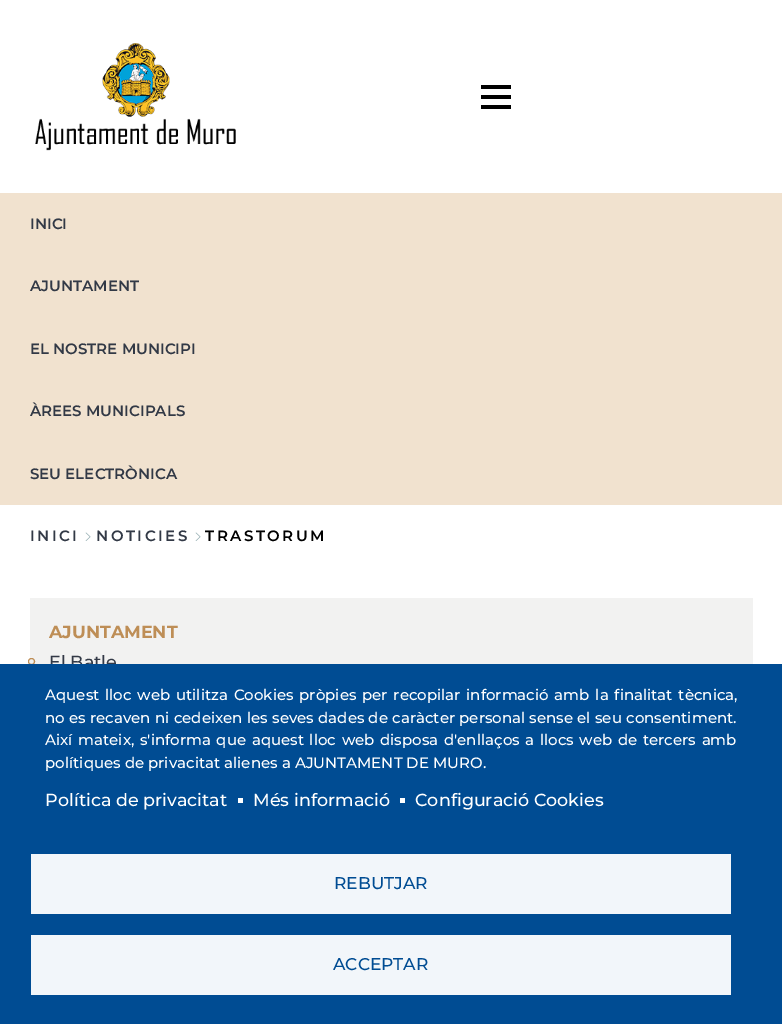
%!PS-Adobe-3.0
%%BoundingBox: 0 0 782 1024
%%LanguageLevel: 3
%%Pages: 1
%%EndComments
%%BeginProlog
/m { moveto } bind def
/S { stroke } bind def
/fn { [ exch dup neg 0 0 3 -1 roll 0 0 ] selectfont } def
/tx { moveto show } def
/bx { rectfill } def
/ci { newpath 0 360 arc closepath } def
/im { 5 dict begin { /h /w /y /x /name } { exch def } forall
  gsave x y translate w h scale
  w h 8 [w 0 0 h 0 0] name (r) file false 3 colorimage grestore end } def
%%EndProlog
%%BeginSetup
<< /PageSize [782 1024] >> setpagedevice
%%EndSetup
%%Page: 1 1
0 1024 translate 1 -1 scale
4 setmiterlimit
1 setgray
0 0 782 1024 bx
(image0.raw) 35 43 201 108 im
0 setgray
481 95 30 4 bx
481 85 30 4 bx
481 105 30 4 bx
0.945 0.886 0.812 setrgbcolor
0 193 782 312 bx
/Montserrat-SemiBold 15 fn
0.196 0.224 0.275 setrgbcolor
(INICI) 30 229 tx
(AJUNTAMENT) 30 291 tx
(EL NOSTRE MUNICIPI) 30 354 tx
(ÀREES MUNICIPALS) 30 416 tx
(SEU ELECTRÒNICA) 30 479 tx
30 541 m 2.5 0 (INICI) ashow
(image1.raw) 85 532 6 9 im
96 541 m 2.5 0 (NOTICIES) ashow
(image1.raw) 195 532 6 9 im
0 setgray
205 541 m 2.5 0 (TRASTORUM) ashow
0.949 0.949 0.945 setrgbcolor
30 598 723 66 bx
/Montserrat-Bold 17.5 fn
0.745 0.557 0.337 setrgbcolor
(AJUNTAMENT) 49 638 tx
31.5 661.5 3 ci S
/Montserrat-Medium 17.5 fn
0.196 0.224 0.275 setrgbcolor
(El Batle) 49 668 tx
0 0.298 0.576 setrgbcolor
0 664 782 360 bx
/Montserrat-Medium 15 fn
1 setgray
45 700 m 1.75 0 32 (Aquest lloc web utilitza Cookies pròpies per recopilar informació amb la finalitat tècnica,) widthshow
45 723 m 0.25 0 32 (no es recaven ni cedeixen les seves dades de caràcter personal sense el seu consentiment.) widthshow
45 745 m 1.6 0 32 (Així mateix, s'informa que aquest lloc web disposa d'enllaços a llocs web de tercers amb) widthshow
(polítiques de privacitat alienes a AJUNTAMENT DE MURO.) 45 768 tx
/Montserrat-Medium 17.5 fn
(Política de privacitat) 45 806 tx
238 798 5 5 bx
(Més informació) 253 806 tx
400 798 5 5 bx
(Configuració Cookies) 415 806 tx
0.949 0.965 0.98 setrgbcolor
31 854 700 60 bx
/Montserrat-Medium 17 fn
0 0.298 0.576 setrgbcolor
(REBUTJAR) 334 889 tx
0.949 0.965 0.98 setrgbcolor
31 935 700 60 bx
0 0.298 0.576 setrgbcolor
(ACCEPTAR) 333 970 tx
showpage
%%EOF
